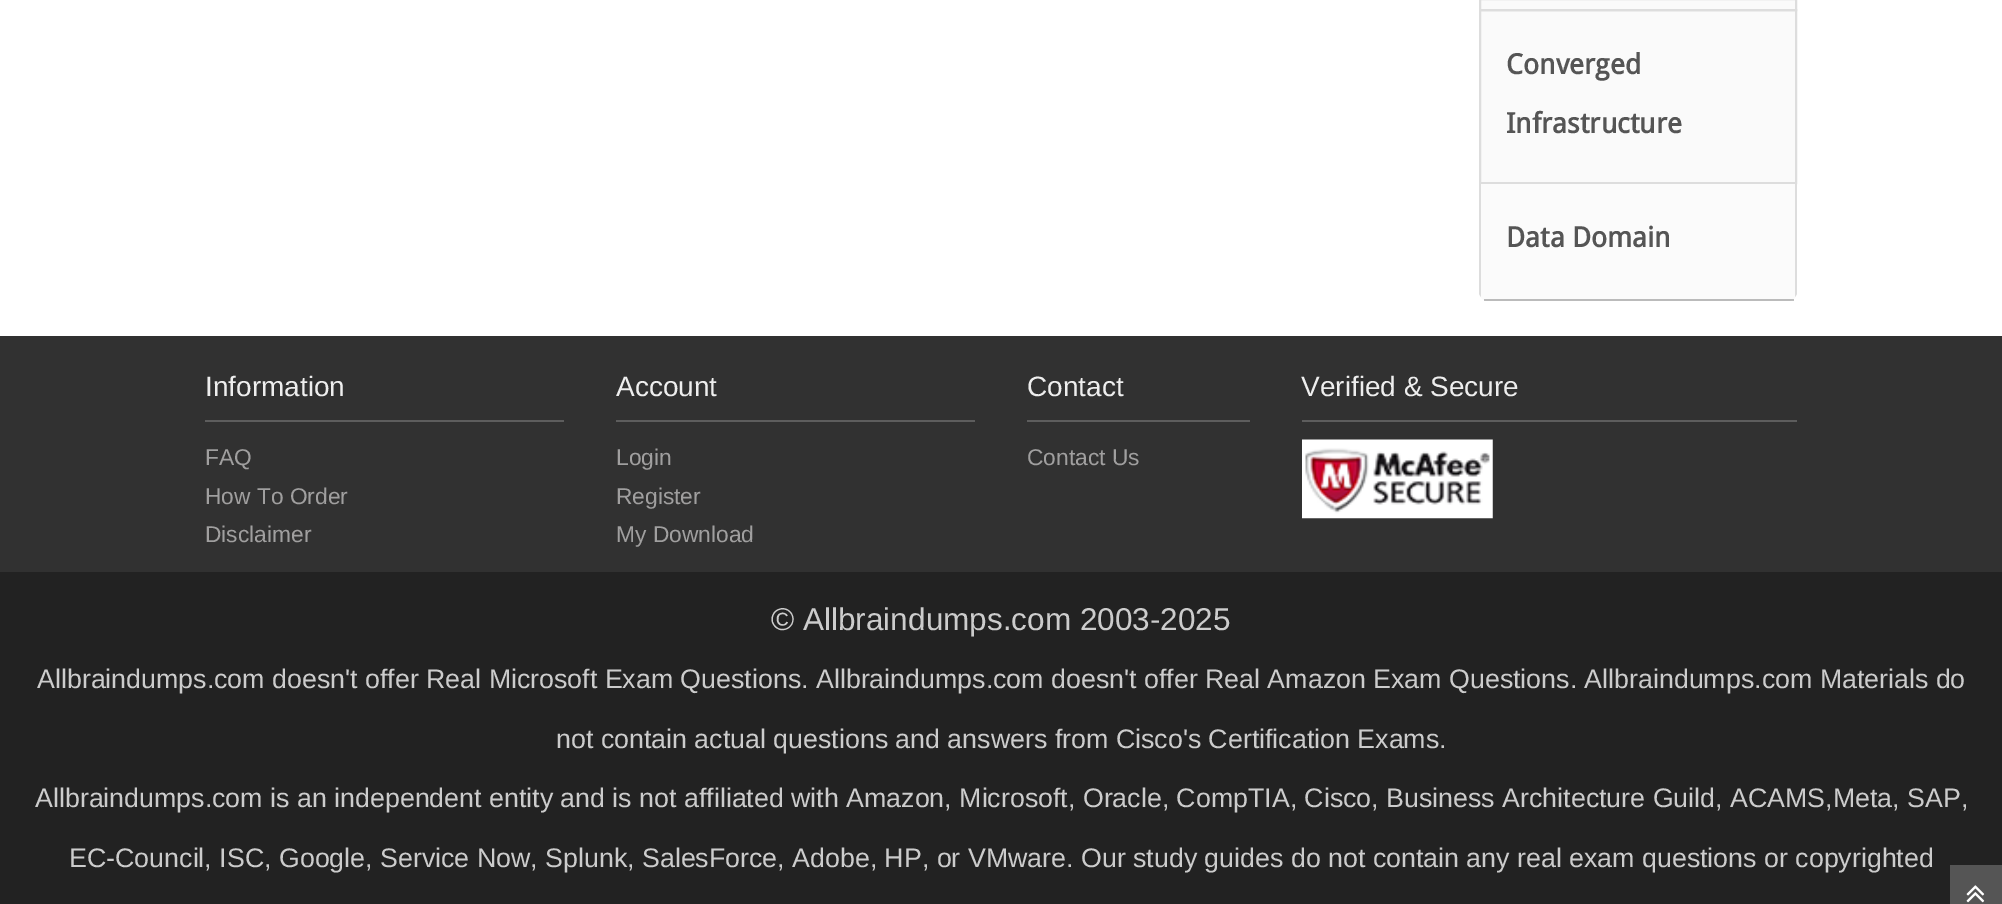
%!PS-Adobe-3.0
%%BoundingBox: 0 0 2002 904
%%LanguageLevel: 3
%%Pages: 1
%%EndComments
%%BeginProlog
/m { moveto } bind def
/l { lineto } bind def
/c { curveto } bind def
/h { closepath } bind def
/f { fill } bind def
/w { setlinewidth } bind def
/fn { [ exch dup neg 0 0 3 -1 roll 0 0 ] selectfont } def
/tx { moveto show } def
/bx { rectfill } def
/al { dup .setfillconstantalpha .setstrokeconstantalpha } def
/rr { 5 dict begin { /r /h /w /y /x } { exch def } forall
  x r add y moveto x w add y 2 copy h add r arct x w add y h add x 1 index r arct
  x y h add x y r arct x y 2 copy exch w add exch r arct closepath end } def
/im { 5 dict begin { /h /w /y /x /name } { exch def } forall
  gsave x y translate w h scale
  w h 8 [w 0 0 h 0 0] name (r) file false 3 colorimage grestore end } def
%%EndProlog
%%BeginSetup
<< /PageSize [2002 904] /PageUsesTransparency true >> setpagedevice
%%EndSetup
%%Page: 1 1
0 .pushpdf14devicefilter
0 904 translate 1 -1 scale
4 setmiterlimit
1 setgray
0 0 2002 904 bx
0.98 setgray
1479 -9 318 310 9 rr f
0.25 al
0 setgray
1484 299 310 2 bx
1 al
0.867 setgray
2 w
1480 -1 316 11 rectstroke
1480 10 316 173 rectstroke
/DroidSans-Bold 28 fn
0.333 setgray
(Converged) 1506 74 tx
(Infrastructure) 1506 133 tx
0.984 setgray
1479 182 m 1797 182 l 1797 294 l 1796 297 1793 299 1788 299 c 1488 299 l 1483 299 1480 297 1479 294 c h f
0.867 setgray
1479 182 m 1479 294 l 1481 297 l 1481 184 l 1795 184 l 1795 297 l 1797 294 l 1797 182 l h f
0.333 setgray
(Data Domain) 1506 247 tx
0.192 setgray
0 336 2002 236 bx
0.365 setgray
205 420 359 2 bx
/LiberationSans-Regular 28 fn
0.933 setgray
(Information) 205 396 tx
/LiberationSans-Regular 22.75 fn
0.627 0.624 0.624 setrgbcolor
(FAQ) 205 465 tx
(How To Order) 205 504 tx
(Disclaimer) 205 542 tx
0.365 setgray
616 420 359 2 bx
/LiberationSans-Regular 28 fn
0.933 setgray
(Account) 616 396 tx
/LiberationSans-Regular 22.75 fn
0.627 0.624 0.624 setrgbcolor
(Login) 616 465 tx
(Register) 616 504 tx
(My Download) 616 542 tx
0.365 setgray
1027 420 223 2 bx
/LiberationSans-Regular 28 fn
0.933 setgray
(Contact) 1027 396 tx
/LiberationSans-Regular 22.75 fn
0.627 0.624 0.624 setrgbcolor
(Contact Us) 1027 465 tx
0.365 setgray
1302 420 495 2 bx
/LiberationSans-Regular 28 fn
0.933 setgray
(Verified & Secure) 1301 396 tx
(image0.raw) 1302 439 191 80 im
0.133 setgray
0 572 2002 332 bx
/LiberationSans-Regular 31.5 fn
0.8 setgray
(© Allbraindumps.com 2003-2025) 771 630 tx
/LiberationSans-Regular 26.78 fn
(Allbraindumps.com doesn't offer Real Microsoft Exam Questions. Allbraindumps.com doesn't offer Real Amazon Exam Questions. Allbraindumps.com Materials do) 37 688 tx
(not contain actual questions and answers from Cisco's Certification Exams.) 556 748 tx
(Allbraindumps.com is an independent entity and is not affiliated with Amazon, Microsoft, Oracle, CompTIA, Cisco, Business Architecture Guild, ACAMS,Meta, SAP,) 35 807 tx
(EC-Council, ISC, Google, Service Now, Splunk, SalesForce, Adobe, HP, or VMware. Our study guides do not contain any real exam questions or copyrighted) 69 867 tx
0.333 setgray
1950 865 52 39 bx
(image1.raw) 1966 885 19 18 im
.poppdf14devicefilter showpage
%%EOF
